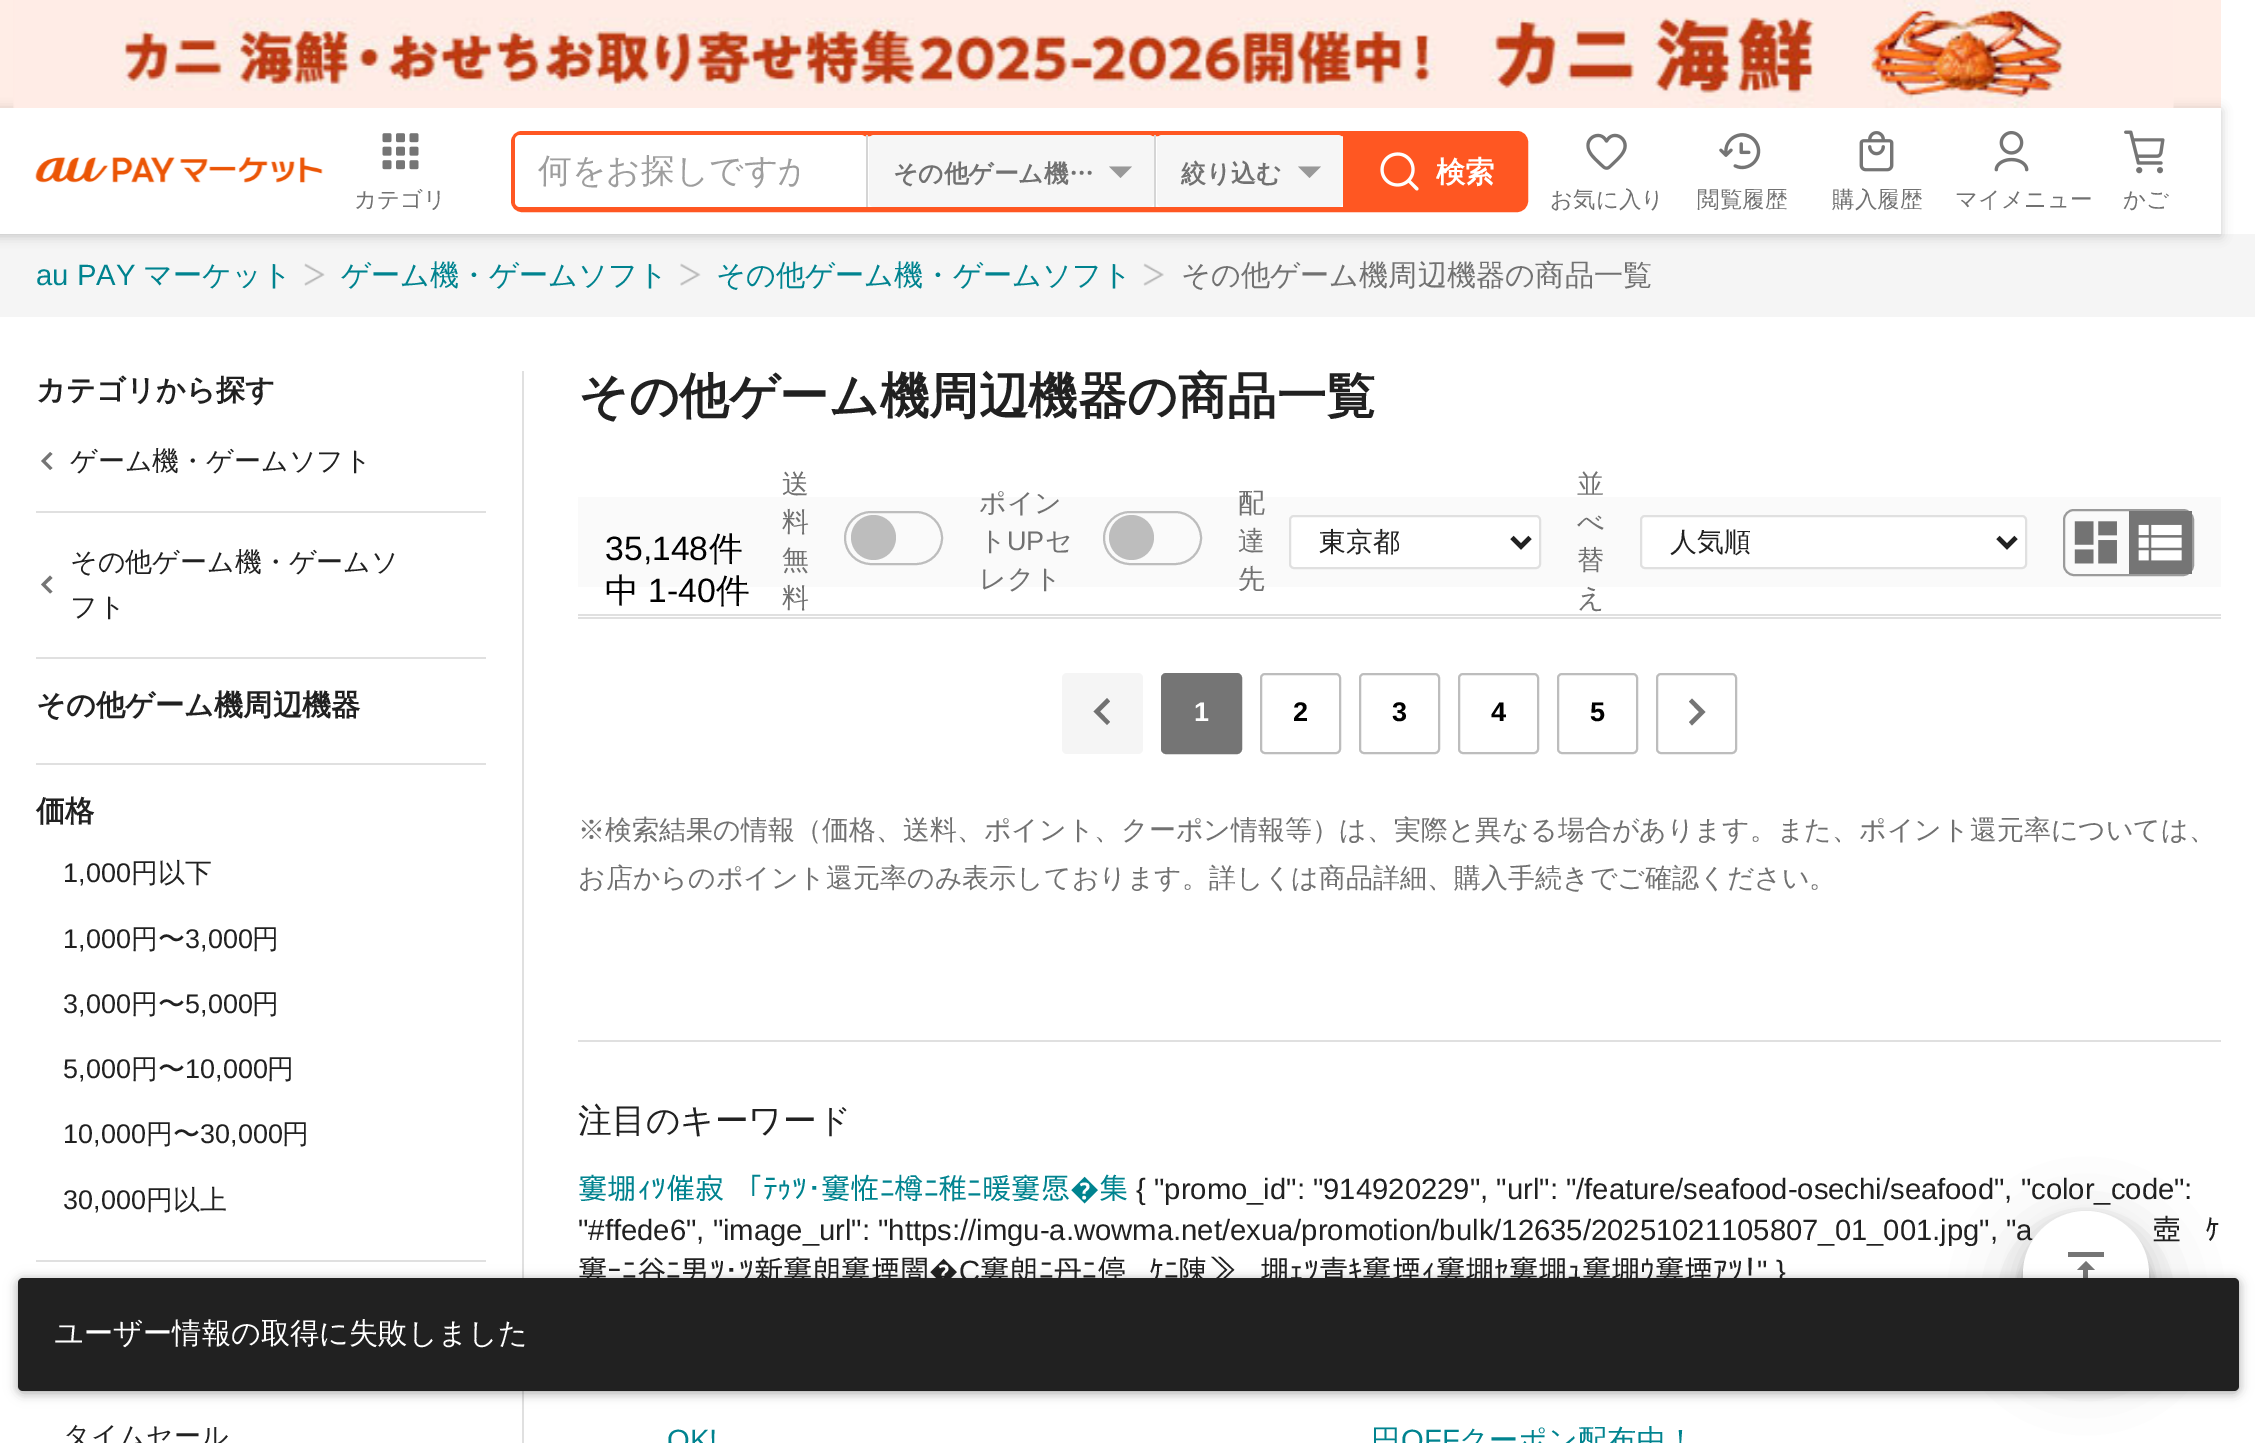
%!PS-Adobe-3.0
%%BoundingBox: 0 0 2255 1443
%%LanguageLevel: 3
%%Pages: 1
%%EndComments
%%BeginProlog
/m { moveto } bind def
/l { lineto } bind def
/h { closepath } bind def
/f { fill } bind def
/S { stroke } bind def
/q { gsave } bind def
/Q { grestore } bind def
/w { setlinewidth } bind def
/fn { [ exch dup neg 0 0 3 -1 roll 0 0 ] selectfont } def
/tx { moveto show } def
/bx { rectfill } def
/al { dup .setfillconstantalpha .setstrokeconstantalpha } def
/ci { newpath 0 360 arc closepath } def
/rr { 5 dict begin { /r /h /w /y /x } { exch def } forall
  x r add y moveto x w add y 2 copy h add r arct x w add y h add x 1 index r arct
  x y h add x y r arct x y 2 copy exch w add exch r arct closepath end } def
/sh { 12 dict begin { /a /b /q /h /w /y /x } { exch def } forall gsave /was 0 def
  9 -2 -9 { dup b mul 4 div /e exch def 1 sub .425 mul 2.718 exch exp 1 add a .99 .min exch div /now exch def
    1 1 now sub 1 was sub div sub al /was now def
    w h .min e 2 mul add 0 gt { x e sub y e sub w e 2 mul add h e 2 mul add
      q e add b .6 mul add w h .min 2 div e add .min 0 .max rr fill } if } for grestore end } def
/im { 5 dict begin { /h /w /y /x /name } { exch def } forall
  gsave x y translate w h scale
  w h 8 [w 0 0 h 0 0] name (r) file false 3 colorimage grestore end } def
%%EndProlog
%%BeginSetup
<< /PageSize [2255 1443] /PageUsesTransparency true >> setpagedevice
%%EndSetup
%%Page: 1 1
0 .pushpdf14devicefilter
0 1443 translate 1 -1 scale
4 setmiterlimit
1 setgray
0 0 2255 1443 bx
1 0.929 0.902 setrgbcolor
0 0 2221 108 bx
0.961 setgray
0 234 2255 83 bx
0 setgray
-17 110 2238 126 0 5.5 0.2 sh
(image0.raw) 13 0 2161 108 im
1 setgray
0 108 2221 126 bx
(image1.raw) 35 157 288 26 im
1 0.341 0.133 setrgbcolor
5 w
513.5 133.5 1012 76 8.5 rr S
1 setgray
515 135 351 72 5 rr f
q
538 151 261 43 rectclip
/WenQuanYiZenHei-Medium 33.75 fn
0.62 setgray
(何をお探しですか) 538 182 tx
Q
0.835 setgray
866 135 2 72 bx
0.965 setgray
869 135 285 72 5 rr f
/WenQuanYiZenHei-Bold 24.75 fn
0.443 setgray
(その他ゲーム機…) 893 182 tx
0.6 setgray
1109 166.5 m 1132 166.5 l 1120.5 178 l h f
0.835 setgray
1154 135 2 72 bx
0.965 setgray
1157 135 186 72 5 rr f
0.443 setgray
(絞り込む) 1181 182 tx
0.6 setgray
1298 166.5 m 1321 166.5 l 1309.5 178 l h f
1 0.341 0.133 setrgbcolor
1343 136 180 71 bx
(image2.raw) 1380 152 39 39 im
/WenQuanYiZenHei-Bold 29.25 fn
1 setgray
(検索) 1436 182 tx
(image3.raw) 382 133 37 37 im
/WenQuanYiZenHei-Medium 22.5 fn
0.443 setgray
(カテゴリ) 354 207 tx
(image4.raw) 1586 133 41 37 im
(お気に入り) 1550 207 tx
(image5.raw) 1719 133 42 37 im
(閲覧履歴) 1697 207 tx
(image6.raw) 1859 131 35 41 im
(購入履歴) 1832 207 tx
(image7.raw) 1994 131 35 41 im
(マイメニュー) 1955 207 tx
(image8.raw) 2124 130 41 44 im
(かご) 2123 207 tx
/LiberationSans-Regular 29.25 fn
0 0.514 0.561 setrgbcolor
(au PAY) 36 285 tx
/WenQuanYiZenHei-Medium 29.25 fn
(マーケット) 143 285 tx
(image9.raw) 304 263 21 23 im
(ゲーム機・ゲームソフト) 341 285 tx
(image10.raw) 680 263 21 23 im
(その他ゲーム機・ゲームソフト) 716 285 tx
(image11.raw) 1143 263 21 23 im
0.443 setgray
(その他ゲーム機周辺機器の商品一覧) 1181 285 tx
0.878 setgray
36 657 450 2 bx
/WenQuanYiZenHei-Bold 29.25 fn
0.129 setgray
(カテゴリから探す) 36 400 tx
0.878 setgray
36 511 450 2 bx
0.459 setgray
52.5 468 m 45.5 461 l 52.5 454 l 50 452 l 41 461 l 50 470 l h f
/WenQuanYiZenHei-Medium 27 fn
0.129 setgray
(ゲーム機・ゲームソフト) 70 470 tx
(その他ゲーム機・ゲームソ) 70 571 tx
0.459 setgray
52.5 591.5 m 45.5 584.5 l 52.5 578 l 50 575.5 l 41 584.5 l 50 593.5 l h f
0.129 setgray
(フト) 70 616 tx
0.878 setgray
36 763 450 2 bx
/WenQuanYiZenHei-Bold 29.25 fn
0.129 setgray
(その他ゲーム機周辺機器) 36 715 tx
0.878 setgray
36 1260 450 2 bx
0.129 setgray
(価格) 36 821 tx
/LiberationSans-Regular 27 fn
(1,000) 63 882 tx
/WenQuanYiZenHei-Medium 27 fn
(円以下) 131 882 tx
/LiberationSans-Regular 27 fn
(1,000) 63 948 tx
/WenQuanYiZenHei-Medium 27 fn
(円〜) 131 948 tx
/LiberationSans-Regular 27 fn
(3,000) 185 948 tx
/WenQuanYiZenHei-Medium 27 fn
(円) 252 948 tx
/LiberationSans-Regular 27 fn
(3,000) 63 1013 tx
/WenQuanYiZenHei-Medium 27 fn
(円〜) 131 1013 tx
/LiberationSans-Regular 27 fn
(5,000) 185 1013 tx
/WenQuanYiZenHei-Medium 27 fn
(円) 252 1013 tx
/LiberationSans-Regular 27 fn
(5,000) 63 1078 tx
/WenQuanYiZenHei-Medium 27 fn
(円〜) 131 1078 tx
/LiberationSans-Regular 27 fn
(10,000) 185 1078 tx
/WenQuanYiZenHei-Medium 27 fn
(円) 267 1078 tx
/LiberationSans-Regular 27 fn
(10,000) 63 1143 tx
/WenQuanYiZenHei-Medium 27 fn
(円〜) 146 1143 tx
/LiberationSans-Regular 27 fn
(30,000) 200 1143 tx
/WenQuanYiZenHei-Medium 27 fn
(円) 282 1143 tx
/LiberationSans-Regular 27 fn
(30,000) 63 1209 tx
/WenQuanYiZenHei-Medium 27 fn
(円以上) 146 1209 tx
(タイムセール) 63 1445 tx
0.878 setgray
522 371 2 1072 bx
/WenQuanYiZenHei-Bold 49.5 fn
0.129 setgray
(その他ゲーム機周辺機器の商品一覧) 578 413 tx
0.98 setgray
578 497 1643 90 bx
/LiberationSans-Regular 33.75 fn
0 setgray
(35,148) 605 560 tx
/WenQuanYiZenHei-Medium 33.75 fn
(件) 709 560 tx
(中) 605 602 tx
/LiberationSans-Regular 33.75 fn
(1-40) 648 602 tx
/WenQuanYiZenHei-Medium 33.75 fn
(件) 716 602 tx
/WenQuanYiZenHei-Medium 27 fn
0.443 setgray
(送) 782 493 tx
(料) 782 531 tx
(無) 782 569 tx
(料) 782 607 tx
0.741 setgray
2 w
845 512 97 52 26 rr S
873.5 537.5 22.5 ci f
0.443 setgray
(ポイン) 979 512 tx
(ト) 979 550 tx
/LiberationSans-Regular 27 fn
(UP) 1007 550 tx
/WenQuanYiZenHei-Medium 27 fn
(セ) 1045 550 tx
(レクト) 979 588 tx
0.741 setgray
1104 512 97 52 26 rr S
1131.5 537.5 22.5 ci f
0.443 setgray
(配) 1238 512 tx
(達) 1238 550 tx
(先) 1238 588 tx
1 setgray
1290 516 250 52 4 rr q f Q
0.878 setgray
S
0.129 setgray
4.5 w
1512 537.5 m 1521 546.5 l 1530 537.5 l S
(東京都) 1319 551 tx
0.443 setgray
(並) 1577 493 tx
(べ) 1577 531 tx
(替) 1577 569 tx
(え) 1577 607 tx
1 setgray
1641 516 385 52 4 rr q f Q
0.878 setgray
2 w
S
0.129 setgray
4.5 w
1998 537.5 m 2007 546.5 l 2016 537.5 l S
(人気順) 1670 551 tx
0.608 setgray
2 w
2064 510 129 65 10 rr S
(image12.raw) 2074 521 43 43 im
0.459 setgray
2129 511 63 63 bx
(image13.raw) 2138 524 44 37 im
0.878 setgray
578 614 1643 2 bx
578 617 1643 2 bx
0.961 setgray
1062 673 81 81 5 rr f
0.443 setgray
1110 722 m 1100 711.5 l 1110 701.5 l 1107 698 l 1093.5 711.5 l 1107 725 l h f
0.459 setgray
1162 674 79 79 4 rr q f Q
S
/LiberationSans-Bold 27 fn
1 setgray
(1) 1194 721 tx
0.741 setgray
1261 674 79 79 4 rr S
0 setgray
(2) 1293 721 tx
0.741 setgray
1360 674 79 79 4 rr S
0 setgray
(3) 1392 721 tx
0.741 setgray
1459 674 79 79 4 rr S
0 setgray
(4) 1491 721 tx
0.741 setgray
1558 674 79 79 4 rr S
0 setgray
(5) 1590 721 tx
0.741 setgray
1657 674 79 79 4 rr S
0.459 setgray
1689 722 m 1699 712 l 1689 701.5 l 1692 698.5 l 1705.5 712 l 1692 725.5 l h f
/WenQuanYiZenHei-Medium 27 fn
0.443 setgray
(※検索結果の情報（価格、送料、ポイント、クーポン情報等）は、実際と異なる場合があります。また、ポイント還元率については、) 578 839 tx
(お店からのポイント還元率のみ表示しております。詳しくは商品詳細、購入手続きでご確認ください。) 578 887 tx
0.878 setgray
578 1040 1643 2 bx
/WenQuanYiZenHei-Medium 33.75 fn
0.129 setgray
(注目のキーワード) 578 1132 tx
/IPAPGothic-Regular 29.25 fn
0 0.514 0.561 setrgbcolor
(窶堋ｨﾂ催寂) 578 1199 tx
(｢ﾃｩﾂ・窶恠ﾆ樽ﾆ稚ﾆ暖窶愿) 748 1199 tx
/NotoSans-Regular 29.25 fn
(�) 1070 1199 tx
/IPAPGothic-Regular 29.25 fn
(集) 1099 1199 tx
/LiberationSans-Regular 29.25 fn
0.129 setgray
({ "promo_id": "914920229", "url": "/feature/seafood-osechi/seafood", "color_code":) 1136 1199 tx
("#ffede6", "image_url": "https://imgu-a.wowma.net/exua/promotion/bulk/12635/20251021105807_01_001.jpg", "a) 578 1240 tx
/IPAPGothic-Regular 29.25 fn
(壺) 2152 1240 tx
(ｹ) 2205 1240 tx
(窶ｰﾆ谷ﾆ男ﾂ・ﾂ新窶朗窶堙闇) 578 1281 tx
/NotoSans-Regular 29.25 fn
(�) 929 1281 tx
/LiberationSans-Regular 29.25 fn
(C) 959 1281 tx
/IPAPGothic-Regular 29.25 fn
(窶朗ﾆ丹ﾆ停) 980 1281 tx
(ｹﾆ陳≫) 1149 1281 tx
(堋ｪﾂ青ｷ窶堙ｨ窶堋ｾ窶堋ｭ窶堋ｳ窶堙ｱﾂ！) 1260 1281 tx
/LiberationSans-Regular 29.25 fn
(" }) 1757 1281 tx
0 0.514 0.561 setrgbcolor
(OK!) 667 1450 tx
/WenQuanYiZenHei-Medium 29.25 fn
(円) 1371 1450 tx
/LiberationSans-Regular 29.25 fn
(OFF) 1401 1450 tx
/WenQuanYiZenHei-Medium 29.25 fn
(クーポン配布中！) 1459 1450 tx
0 setgray
2023 1233 126 126 63 34 0.19 sh
2023 1224 126 126 63 11 0.23 sh
1 setgray
2086 1274 63 ci f
0.459 setgray
2077 1270 m 2083 1270 l 2083 1293 l 2088 1293 l 2088 1270 l 2095 1270 l 2086 1261 l h 2068 1252 m 2068 1257 l 2104 1257 l 2104 1252 l h f
0 setgray
18 1280 2221 113 5 7 0.12 sh
18 1280 2221 113 5 4.5 0.24 sh
0.129 setgray
18 1278 2221 113 5 rr f
1 setgray
(ユーザー情報の取得に失敗しました) 54 1343 tx
.poppdf14devicefilter showpage
%%EOF
